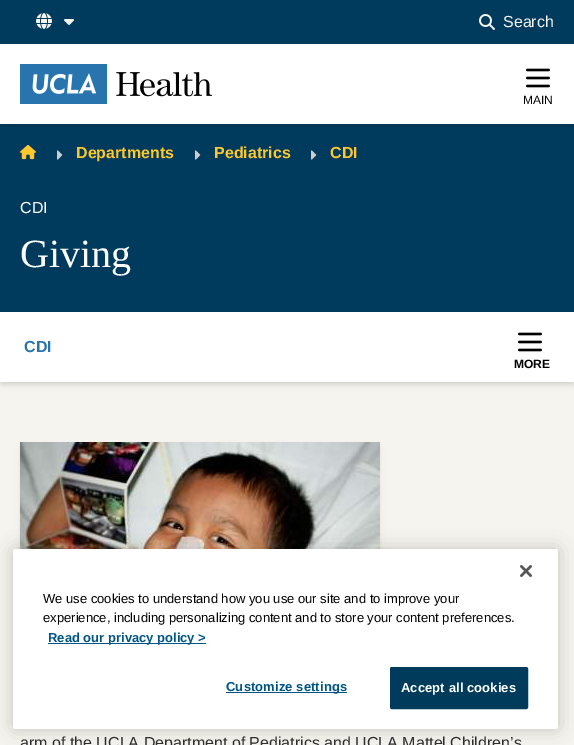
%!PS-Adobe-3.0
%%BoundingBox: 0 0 574 745
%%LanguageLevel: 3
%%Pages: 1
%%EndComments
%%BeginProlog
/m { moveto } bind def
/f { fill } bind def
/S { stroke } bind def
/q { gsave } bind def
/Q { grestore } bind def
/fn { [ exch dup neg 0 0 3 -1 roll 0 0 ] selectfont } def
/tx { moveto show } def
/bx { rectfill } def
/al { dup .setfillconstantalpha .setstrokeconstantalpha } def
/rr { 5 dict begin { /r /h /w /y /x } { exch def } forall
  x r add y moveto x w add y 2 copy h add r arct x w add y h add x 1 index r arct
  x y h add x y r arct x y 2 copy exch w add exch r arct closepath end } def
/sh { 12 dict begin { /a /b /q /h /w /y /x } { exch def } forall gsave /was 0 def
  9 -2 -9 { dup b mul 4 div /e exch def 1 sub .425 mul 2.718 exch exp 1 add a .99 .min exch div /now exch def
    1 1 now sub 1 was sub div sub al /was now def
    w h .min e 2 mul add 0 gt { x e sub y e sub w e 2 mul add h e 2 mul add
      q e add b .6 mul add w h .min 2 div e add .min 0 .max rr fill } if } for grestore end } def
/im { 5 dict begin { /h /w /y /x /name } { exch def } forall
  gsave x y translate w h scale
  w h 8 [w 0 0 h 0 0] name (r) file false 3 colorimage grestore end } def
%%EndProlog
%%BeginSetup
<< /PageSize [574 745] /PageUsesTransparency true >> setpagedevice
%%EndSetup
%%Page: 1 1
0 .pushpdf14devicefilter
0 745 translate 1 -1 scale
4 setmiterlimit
0.965 0.957 0.933 setrgbcolor
0 0 574 745 bx
0 0.227 0.361 setrgbcolor
0 0 574 44 bx
(image0.raw) 36 13 16 16 im
(image1.raw) 64 19 10 6 im
(image2.raw) 479 14 16 16 im
/LiberationSans-Regular 16 fn
0.965 0.957 0.933 setrgbcolor
(Search) 503 27 tx
0 0.227 0.361 setrgbcolor
0 124 574 188 bx
0 setgray
2 48 570 76 0 2 0.1 sh
1 49 572 78 0 3 0.1 sh
1 setgray
0 44 574 80 bx
(image3.raw) 20 64 192 40 im
(image4.raw) 526 68 24 20 im
/LiberationSans-Regular 12 fn
0 setgray
(MAIN) 523 104 tx
(image5.raw) 20 144 16 16 im
(image6.raw) 57 150 6 10 im
/LiberationSans-Bold 16 fn
1 0.78 0.18 setrgbcolor
(Departments) 76 158 tx
(image6.raw) 195 150 6 10 im
(Pediatrics) 214 158 tx
(image6.raw) 311 150 6 10 im
(CDI) 330 158 tx
/LiberationSans-Regular 16 fn
1 setgray
(CDI) 20 213 tx
/LiberationSerif-Regular 40 fn
(Giving) 20 267 tx
0 setgray
2 316 570 66 0 2 0.1 sh
1 317 572 68 0 3 0.1 sh
1 setgray
0 312 574 70 bx
/LiberationSans-Bold 16 fn
0.157 0.455 0.686 setrgbcolor
(CDI) 24 352 tx
(image4.raw) 518 332 24 20 im
/LiberationSans-Bold 12 fn
0 setgray
(MORE) 514 368 tx
21 447 358 238 0 3 0.1 sh
(image7.raw) 20 442 360 107 im
/LiberationSans-Regular 16 fn
0.18 setgray
(arm of the UCLA Department of Pediatrics and UCLA Mattel Children’s) 20 748 tx
0 setgray
13 549 545 180 2.5 9 0.2 sh
1 setgray
13 549 545 180 2.5 rr f
(image8.raw) 520 565 12 12 im
/LiberationSans-Regular 13 fn
0 setgray
(We use cookies to understand how you use our site and to improve your) 43 603 tx
(experience, including personalizing content and to store your content preferences.) 43 622 tx
0 0.333 0.529 setrgbcolor
48 643 158 1 bx
/LiberationSans-Bold 13 fn
(Read our privacy policy >) 48 642 tx
226 692 121 1 bx
226 691 m 0.1 0 (Customize settings) ashow
0 0.231 0.361 setrgbcolor
390.5 667.5 137 41 1.5 rr q f Q
S
1 setgray
401 692 m 0.1 0 (Accept all cookies) ashow
.poppdf14devicefilter showpage
%%EOF
